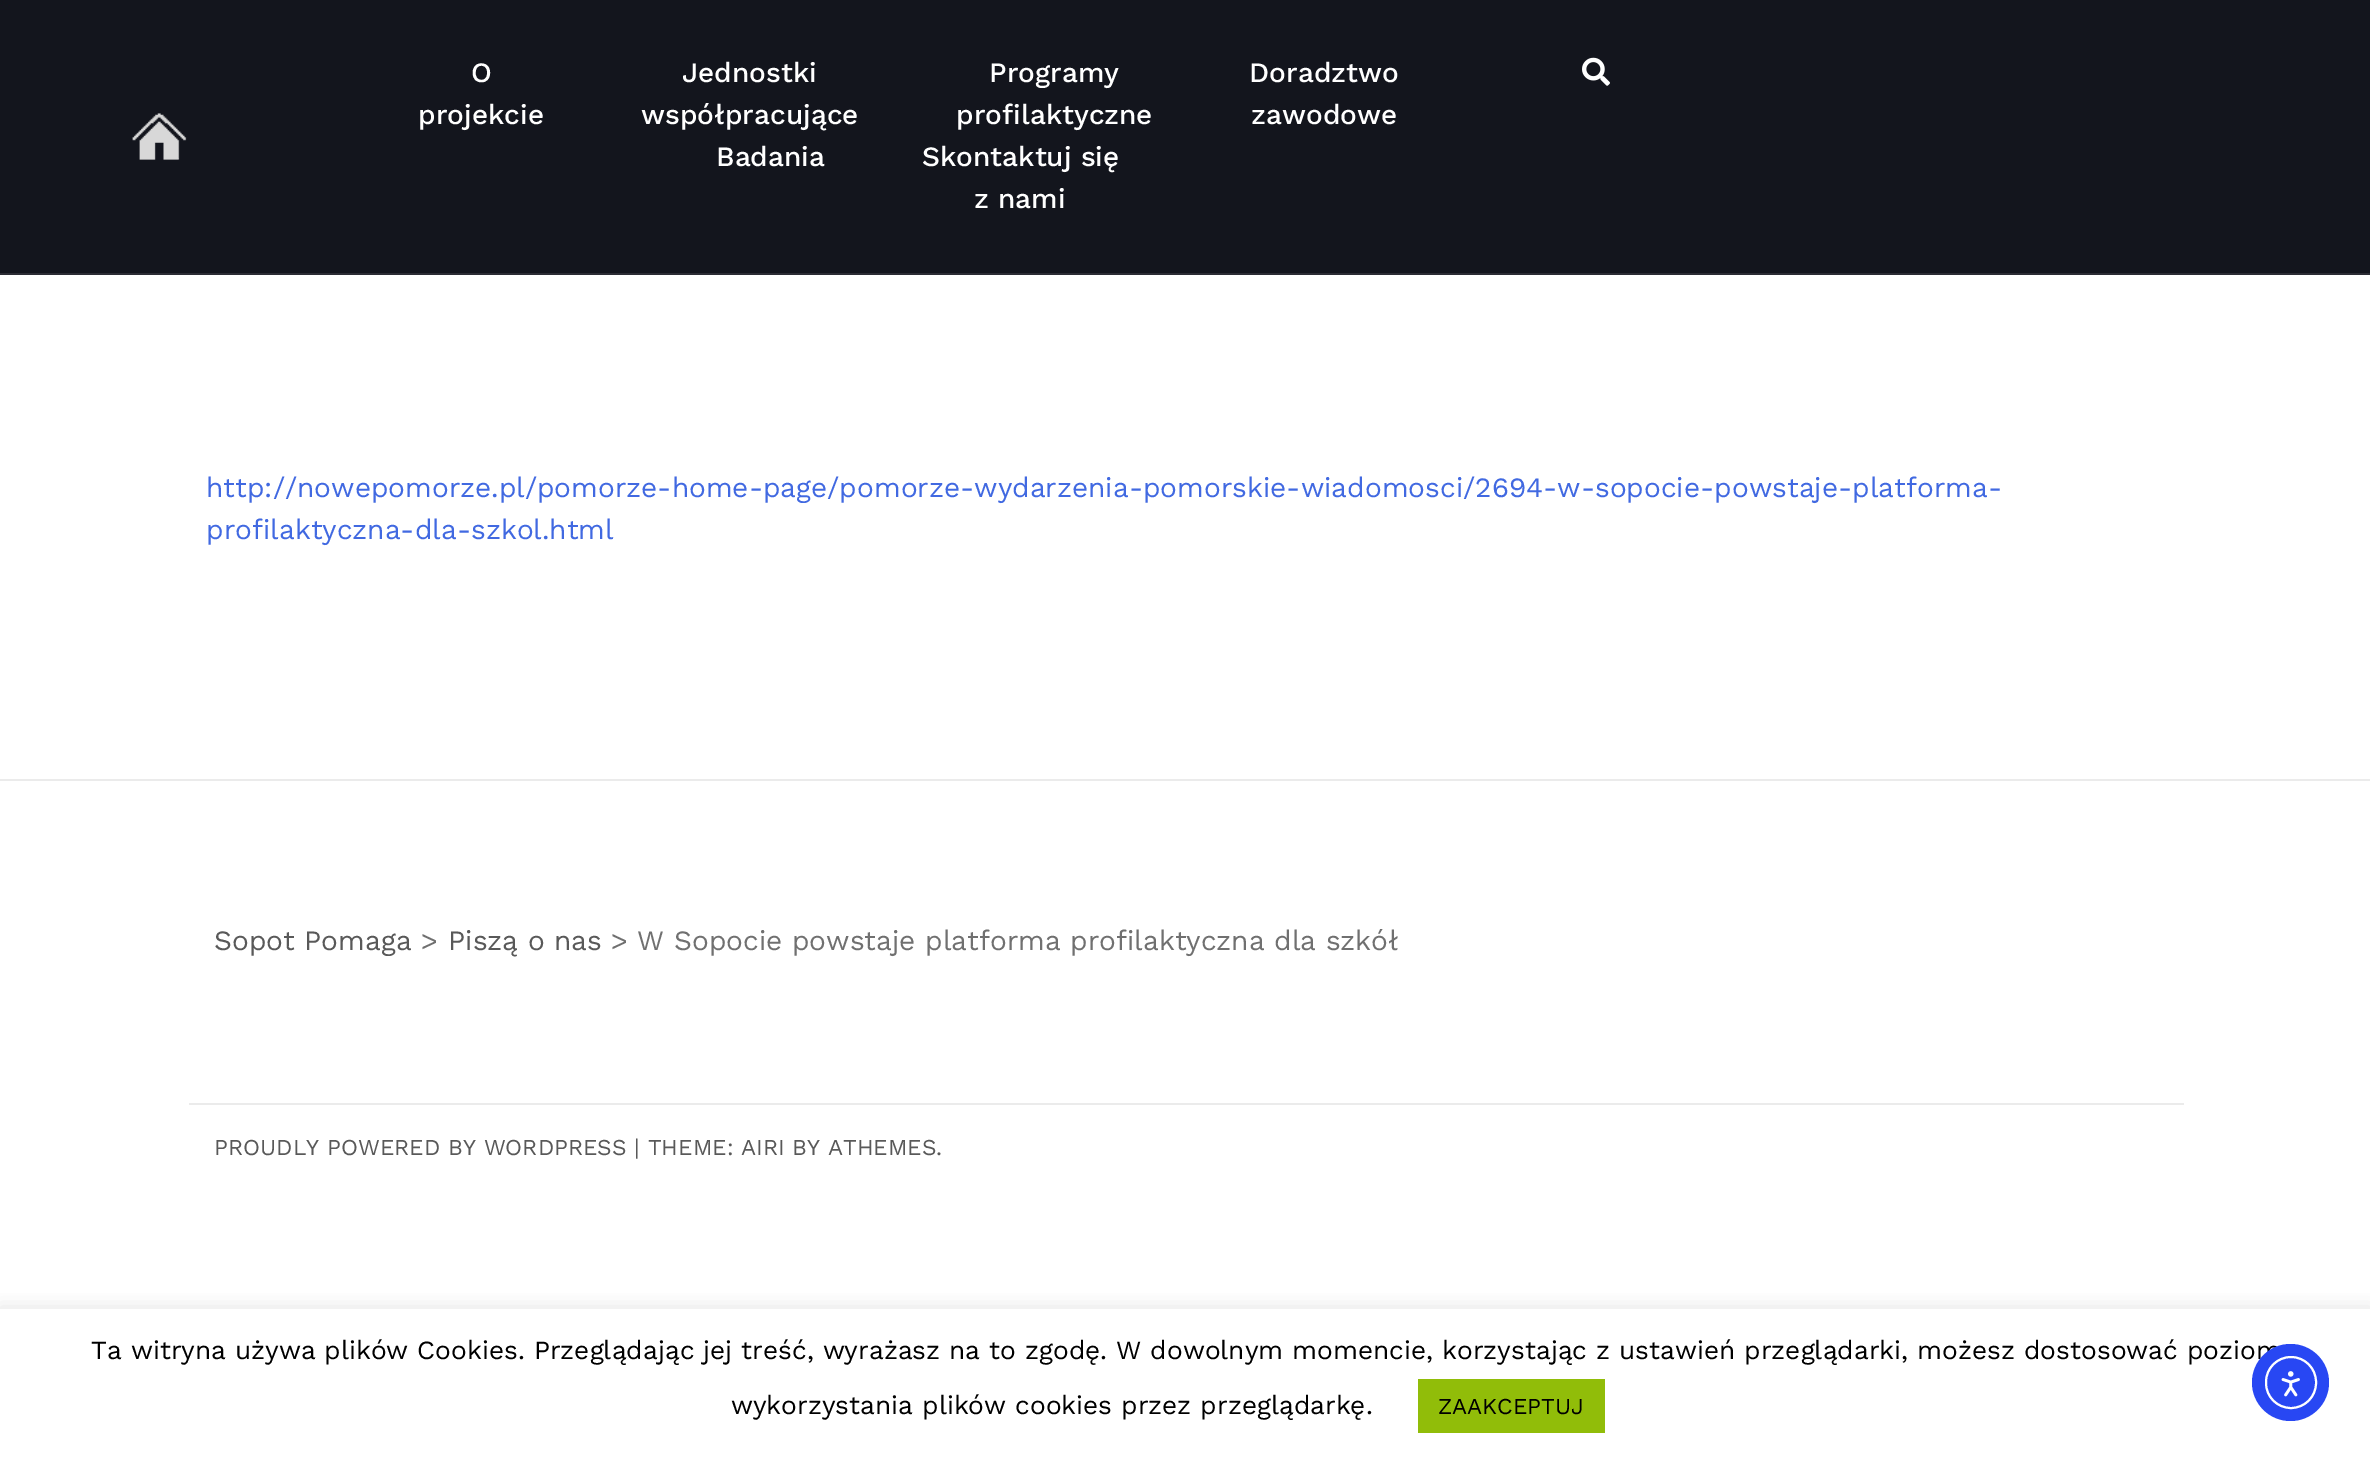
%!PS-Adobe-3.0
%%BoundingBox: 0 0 2370 1462
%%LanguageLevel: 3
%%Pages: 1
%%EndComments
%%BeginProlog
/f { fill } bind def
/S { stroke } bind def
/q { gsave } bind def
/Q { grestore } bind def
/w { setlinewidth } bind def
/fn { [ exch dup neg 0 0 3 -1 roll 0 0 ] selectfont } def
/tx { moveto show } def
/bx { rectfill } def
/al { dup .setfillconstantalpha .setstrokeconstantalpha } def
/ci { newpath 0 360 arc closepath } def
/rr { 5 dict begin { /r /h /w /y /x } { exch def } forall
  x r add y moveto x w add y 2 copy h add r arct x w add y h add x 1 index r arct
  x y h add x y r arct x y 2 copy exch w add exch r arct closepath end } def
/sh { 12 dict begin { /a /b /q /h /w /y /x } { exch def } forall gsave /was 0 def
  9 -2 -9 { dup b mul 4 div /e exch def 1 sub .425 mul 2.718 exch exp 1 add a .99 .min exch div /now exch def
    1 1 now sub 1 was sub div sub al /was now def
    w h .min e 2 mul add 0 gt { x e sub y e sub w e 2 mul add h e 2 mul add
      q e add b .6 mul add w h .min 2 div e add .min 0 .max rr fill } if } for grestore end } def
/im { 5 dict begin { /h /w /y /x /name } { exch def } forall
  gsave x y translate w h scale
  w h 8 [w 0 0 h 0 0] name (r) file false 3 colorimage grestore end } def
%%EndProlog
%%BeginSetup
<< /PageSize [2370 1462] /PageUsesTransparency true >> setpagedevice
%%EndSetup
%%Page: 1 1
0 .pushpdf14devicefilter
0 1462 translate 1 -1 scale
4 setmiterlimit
1 setgray
0 0 2370 1462 bx
0.075 0.082 0.114 setrgbcolor
0 0 2370 273 bx
0.169 0.173 0.204 setrgbcolor
0 273 2370 2 bx
(image0.raw) 132 113 55 47 im
/WorkSans-Medium 28 fn
1 setgray
(O) 471 82 tx
(projekcie) 418 124 tx
(Jednostki) 682 82 tx
(współpracujące) 641 124 tx
(Programy) 989 82 tx
(profilaktyczne) 956 124 tx
(Doradztwo) 1249 82 tx
(zawodowe) 1251 124 tx
(Badania) 716 166 tx
(Skontaktuj się) 922 166 tx
(z nami) 974 208 tx
(image1.raw) 1582 57 28 29 im
/WorkSans-Regular 28 fn
0.255 0.412 0.882 setrgbcolor
(http://nowepomorze.pl/pomorze-home-page/pomorze-wydarzenia-pomorskie-wiadomosci/2694-w-sopocie-powstaje-platforma-) 206 497 tx
(profilaktyczna-dla-szkol.html) 206 539 tx
0.922 setgray
0 779 2370 2 bx
0.349 setgray
(Sopot Pomaga) 214 950 tx
0.439 setgray
(>) 421 950 tx
0.349 setgray
(Piszą o nas) 448 950 tx
0.439 setgray
(> W Sopocie powstaje platforma profilaktyczna dla szkół) 611 950 tx
0.922 setgray
189 1103 1995 2 bx
/WorkSans-Regular 22.75 fn
0.349 setgray
(PROUDLY POWERED BY WORDPRESS | THEME: AIRI BY ATHEMES.) 214 1155 tx
q
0 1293 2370 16 rectclip
0.675 0.671 0.671 setrgbcolor
0 1307 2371 154 0 9 0.3 sh
Q
/WorkSans-Regular 26.25 fn
0 setgray
(Ta witryna używa plików Cookies. Przeglądając jej treść, wyrażasz na to zgodę. W dowolnym momencie, korzystając z ustawień przeglądarki, możesz dostosować poziom) 91 1359 tx
(wykorzystania plików cookies przez przeglądarkę.) 731 1414 tx
0.569 0.741 0.035 setrgbcolor
1418 1379 187 54 bx
/WorkSans-Regular 22.75 fn
0 setgray
(ZAAKCEPTUJ) 1438 1414 tx
0.157 0.278 0.953 setrgbcolor
2290.5 1382.5 38.5 ci f
1 setgray
2 w
2266 1357 50 51 25 rr S
(image2.raw) 2281 1371 19 26 im
.poppdf14devicefilter showpage
%%EOF
